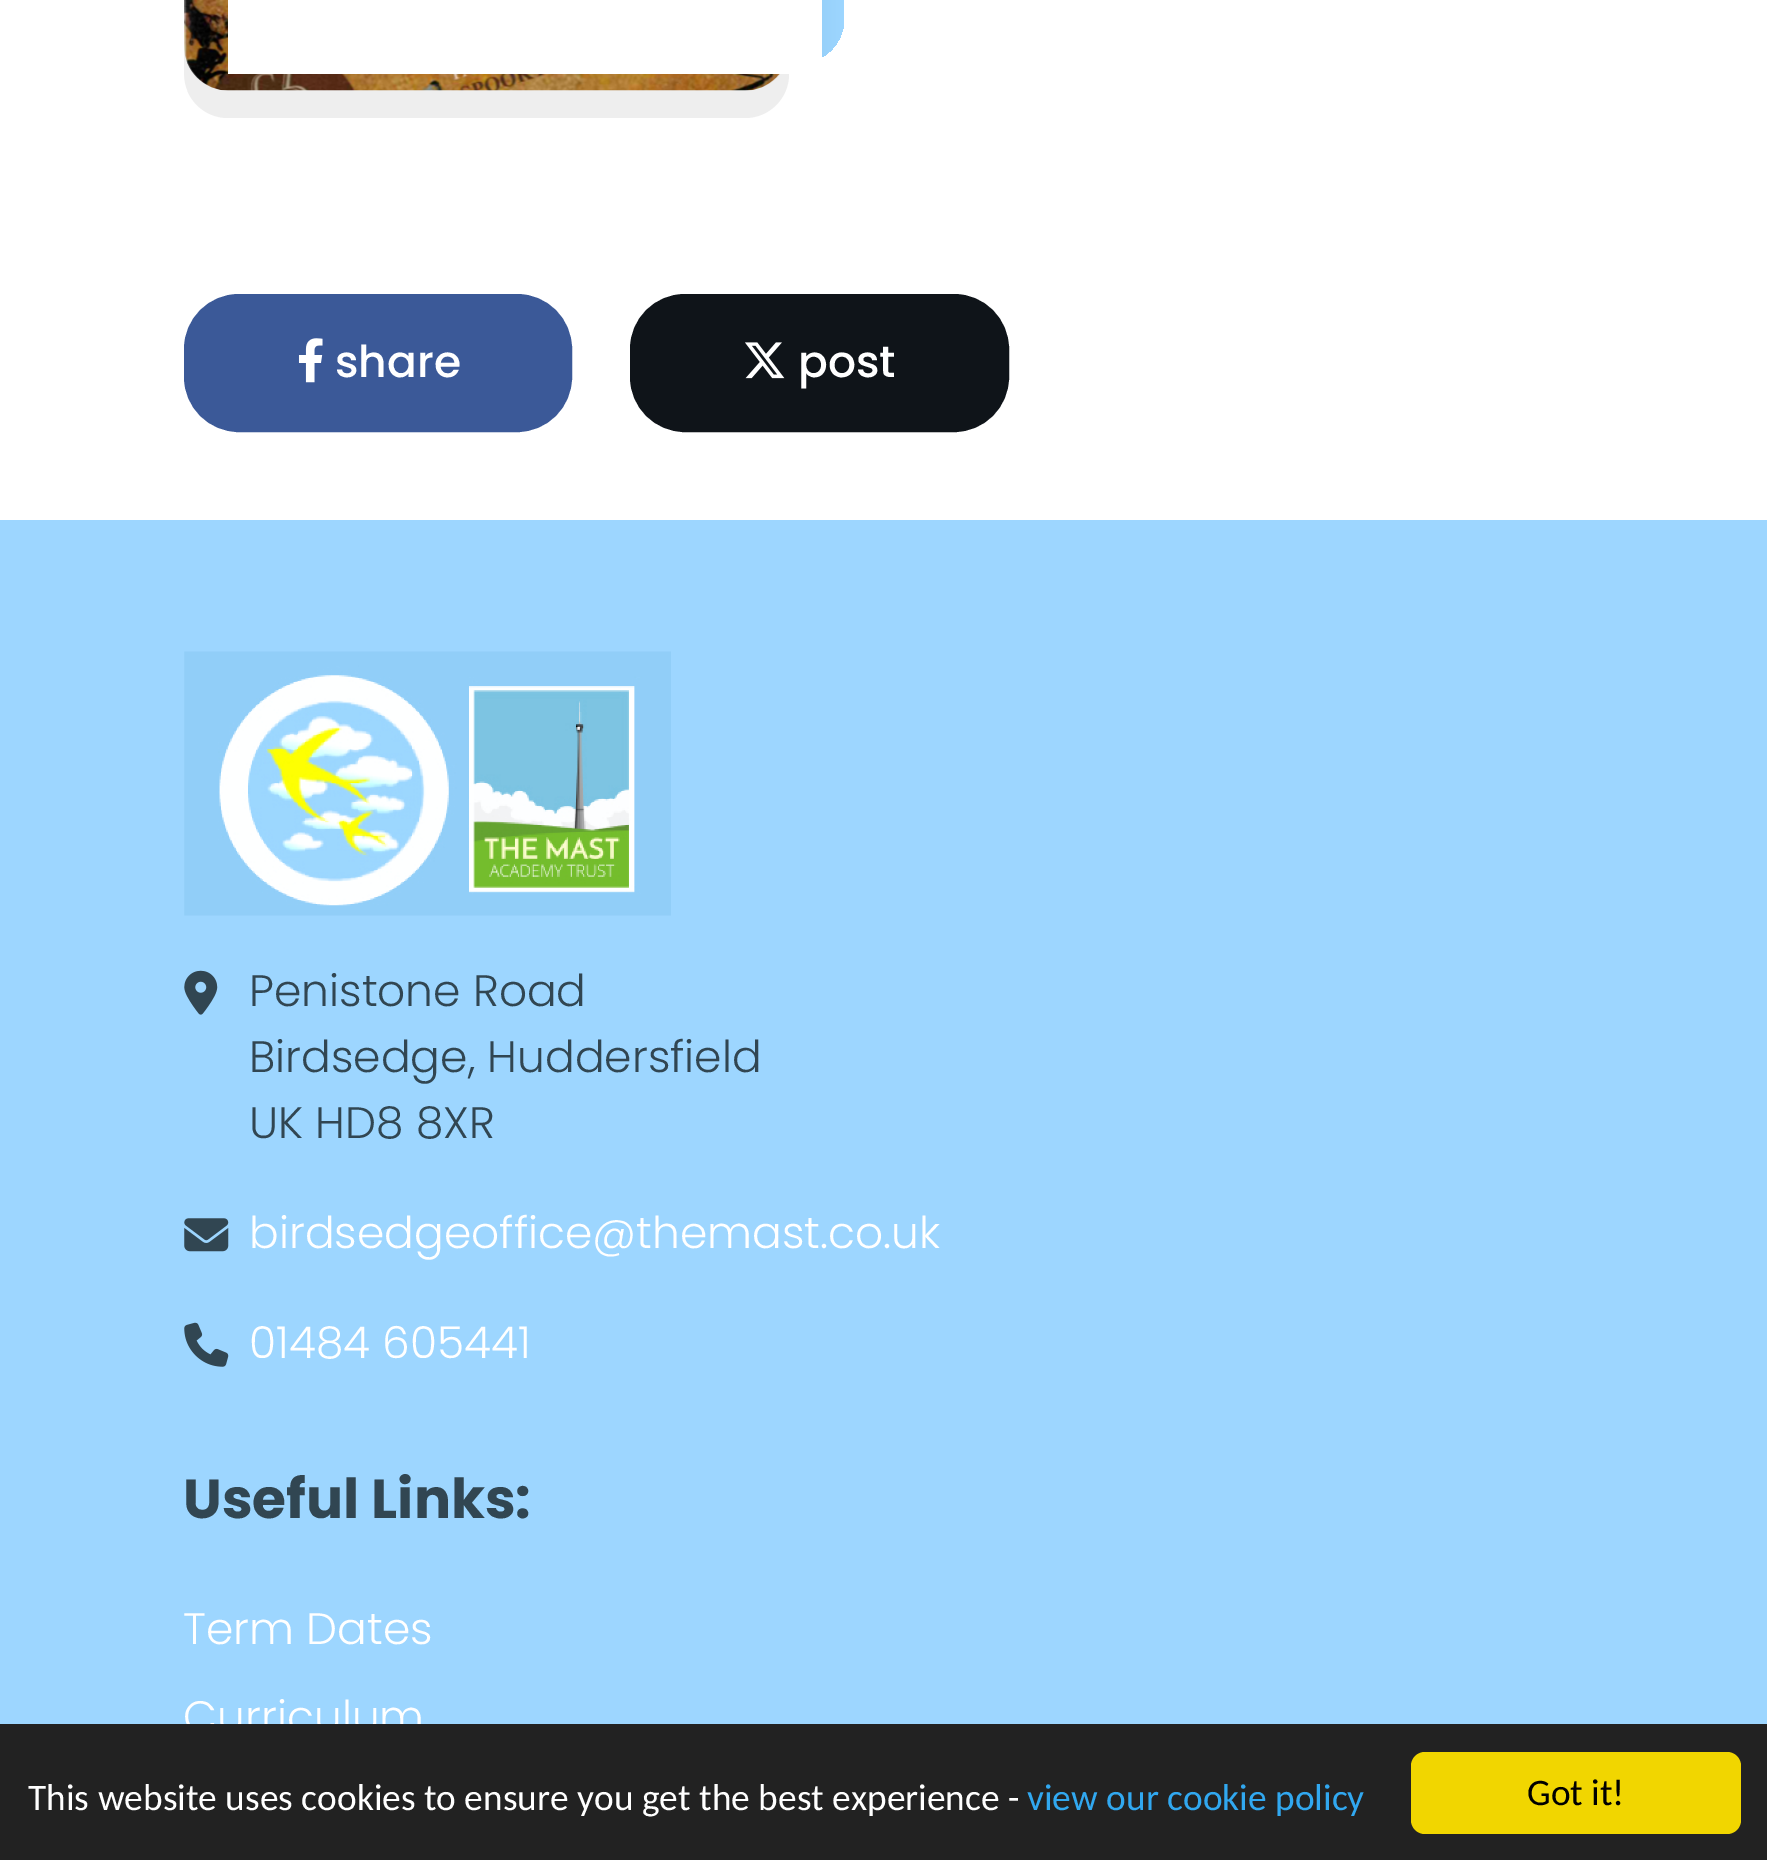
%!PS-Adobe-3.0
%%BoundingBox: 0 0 1767 1860
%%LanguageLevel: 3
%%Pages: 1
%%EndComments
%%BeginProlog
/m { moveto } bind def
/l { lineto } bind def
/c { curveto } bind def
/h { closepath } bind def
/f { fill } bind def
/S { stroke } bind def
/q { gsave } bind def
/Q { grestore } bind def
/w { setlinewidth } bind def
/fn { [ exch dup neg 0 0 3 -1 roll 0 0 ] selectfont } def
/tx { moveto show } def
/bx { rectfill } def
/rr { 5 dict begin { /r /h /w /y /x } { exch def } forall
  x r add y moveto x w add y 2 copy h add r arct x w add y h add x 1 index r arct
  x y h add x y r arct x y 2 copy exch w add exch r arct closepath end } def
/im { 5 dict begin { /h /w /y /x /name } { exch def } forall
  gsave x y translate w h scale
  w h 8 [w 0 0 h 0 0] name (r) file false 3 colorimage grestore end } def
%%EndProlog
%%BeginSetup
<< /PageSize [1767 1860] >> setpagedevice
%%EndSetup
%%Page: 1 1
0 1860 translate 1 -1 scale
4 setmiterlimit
1 setgray
0 0 1767 1860 bx
q 283 -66 m 778 -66 l 814.5 -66 844 -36.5 844 0 c 844 19 l 844 43.5 824.5 63 800 63 c 283 63 l 258.5 63 239 43.5 239 19 c 239 -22 l 239 -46.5 258.5 -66 283 -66 c h clip newpath
<< /ShadingType 2 /ColorSpace /DeviceRGB /Coords [239 -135 844 -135] /Extend [true true] /Function << /FunctionType 2 /Domain [0 1] /C0 [0 0.278 0.498] /C1 [0.616 0.839 1] /N 1 >> >> shfill Q
0.933 setgray
184 -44 605 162 44 rr f
(image0.raw) 184 0 596 91 im
1 setgray
228 0 594 74 bx
0.231 0.349 0.596 setrgbcolor
185.5 295.5 385 135 53.5 rr q f Q
3 w
S
(image1.raw) 298 338 25 45 im
/Poppins-Medium 44 fn
1 setgray
(share) 335 377 tx
0.059 0.078 0.098 setrgbcolor
631.5 295.5 376 135 53.5 rr q f Q
S
(image2.raw) 745 342 40 37 im
1 setgray
(post) 798 377 tx
0.616 0.839 1 setrgbcolor
0 520 1767 1204 bx
(image3.raw) 184 651 487 265 im
(image4.raw) 184 970 34 45 im
/Poppins-Light 44 fn
0.192 0.275 0.322 setrgbcolor
(Penistone Road) 249 1006 tx
(Birdsedge, Huddersfield) 249 1072 tx
(UK HD8 8XR) 249 1138 tx
(image5.raw) 184 1218 45 34 im
1 setgray
(birdsedgeoffice@themast.co.uk) 249 1248 tx
(image6.raw) 184 1322 45 45 im
(01484 605441) 249 1358 tx
/Poppins-Bold 55 fn
0.192 0.275 0.322 setrgbcolor
(Useful Links:) 183 1518 tx
/Poppins-Light 44 fn
1 setgray
(Term Dates) 183 1644 tx
(Curriculum) 183 1732 tx
0.133 setgray
0 1724 1767 136 bx
/Carlito-Regular 37.4 fn
1 setgray
(This website uses cookies to ensure you get the best experience -) 28 1810 tx
0.192 0.659 0.941 setrgbcolor
(view our cookie policy) 1027 1810 tx
0.945 0.839 0 setrgbcolor
1411 1752 330 82 14 rr f
0 setgray
(Got it!) 1527 1805 tx
showpage
%%EOF
